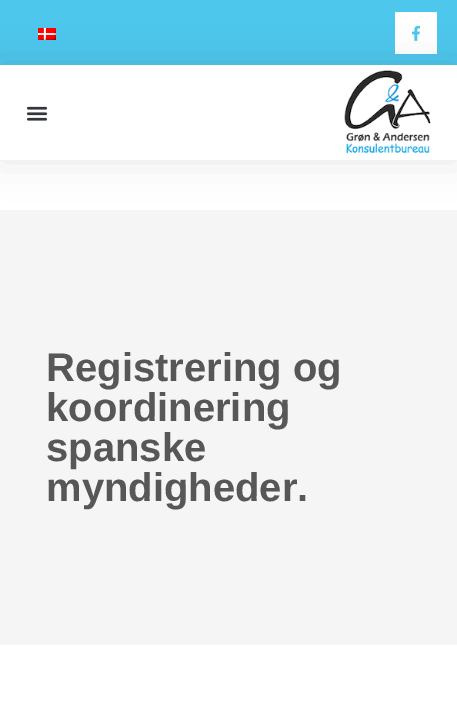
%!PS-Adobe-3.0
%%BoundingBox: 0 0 457 719
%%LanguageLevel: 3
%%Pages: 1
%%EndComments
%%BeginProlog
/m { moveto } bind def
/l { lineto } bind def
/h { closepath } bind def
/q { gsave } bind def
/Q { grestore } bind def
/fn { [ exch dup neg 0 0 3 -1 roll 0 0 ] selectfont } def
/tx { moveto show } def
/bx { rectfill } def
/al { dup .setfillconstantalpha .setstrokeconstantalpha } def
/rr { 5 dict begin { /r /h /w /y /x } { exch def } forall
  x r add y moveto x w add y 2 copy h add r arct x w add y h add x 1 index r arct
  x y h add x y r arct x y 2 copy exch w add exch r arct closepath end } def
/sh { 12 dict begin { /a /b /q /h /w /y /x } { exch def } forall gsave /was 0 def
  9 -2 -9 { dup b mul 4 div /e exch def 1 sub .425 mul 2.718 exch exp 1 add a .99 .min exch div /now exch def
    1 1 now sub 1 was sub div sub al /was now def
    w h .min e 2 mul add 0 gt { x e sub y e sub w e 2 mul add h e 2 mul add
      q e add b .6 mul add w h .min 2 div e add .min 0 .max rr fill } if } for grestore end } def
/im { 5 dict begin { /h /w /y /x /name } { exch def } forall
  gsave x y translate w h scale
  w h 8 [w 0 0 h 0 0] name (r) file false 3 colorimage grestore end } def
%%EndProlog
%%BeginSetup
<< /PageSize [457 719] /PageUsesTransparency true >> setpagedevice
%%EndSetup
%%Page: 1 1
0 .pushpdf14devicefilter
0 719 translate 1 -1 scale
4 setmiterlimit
1 setgray
0 0 457 719 bx
0.302 0.78 0.925 setrgbcolor
0 0 457 65 bx
(image0.raw) 38 28 18 12 im
1 setgray
395 12 42 42 bx
(image1.raw) 412 25 8 16 im
q
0 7 m 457 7 l 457 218 l 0 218 l h 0 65 m 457 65 l 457 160 l 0 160 l h eoclip newpath
0 setgray
0 65 457 95 0 19 0.1 sh
Q
(image2.raw) 26 106 22 15 im
(image3.raw) 344 70 87 84 im
0.961 setgray
0 210 457 435 bx
/LiberationSans-Bold 40 fn
0.341 setgray
(Registrering og) 46 381 tx
(koordinering) 46 421 tx
(spanske) 46 461 tx
(myndigheder.) 46 501 tx
.poppdf14devicefilter showpage
%%EOF
